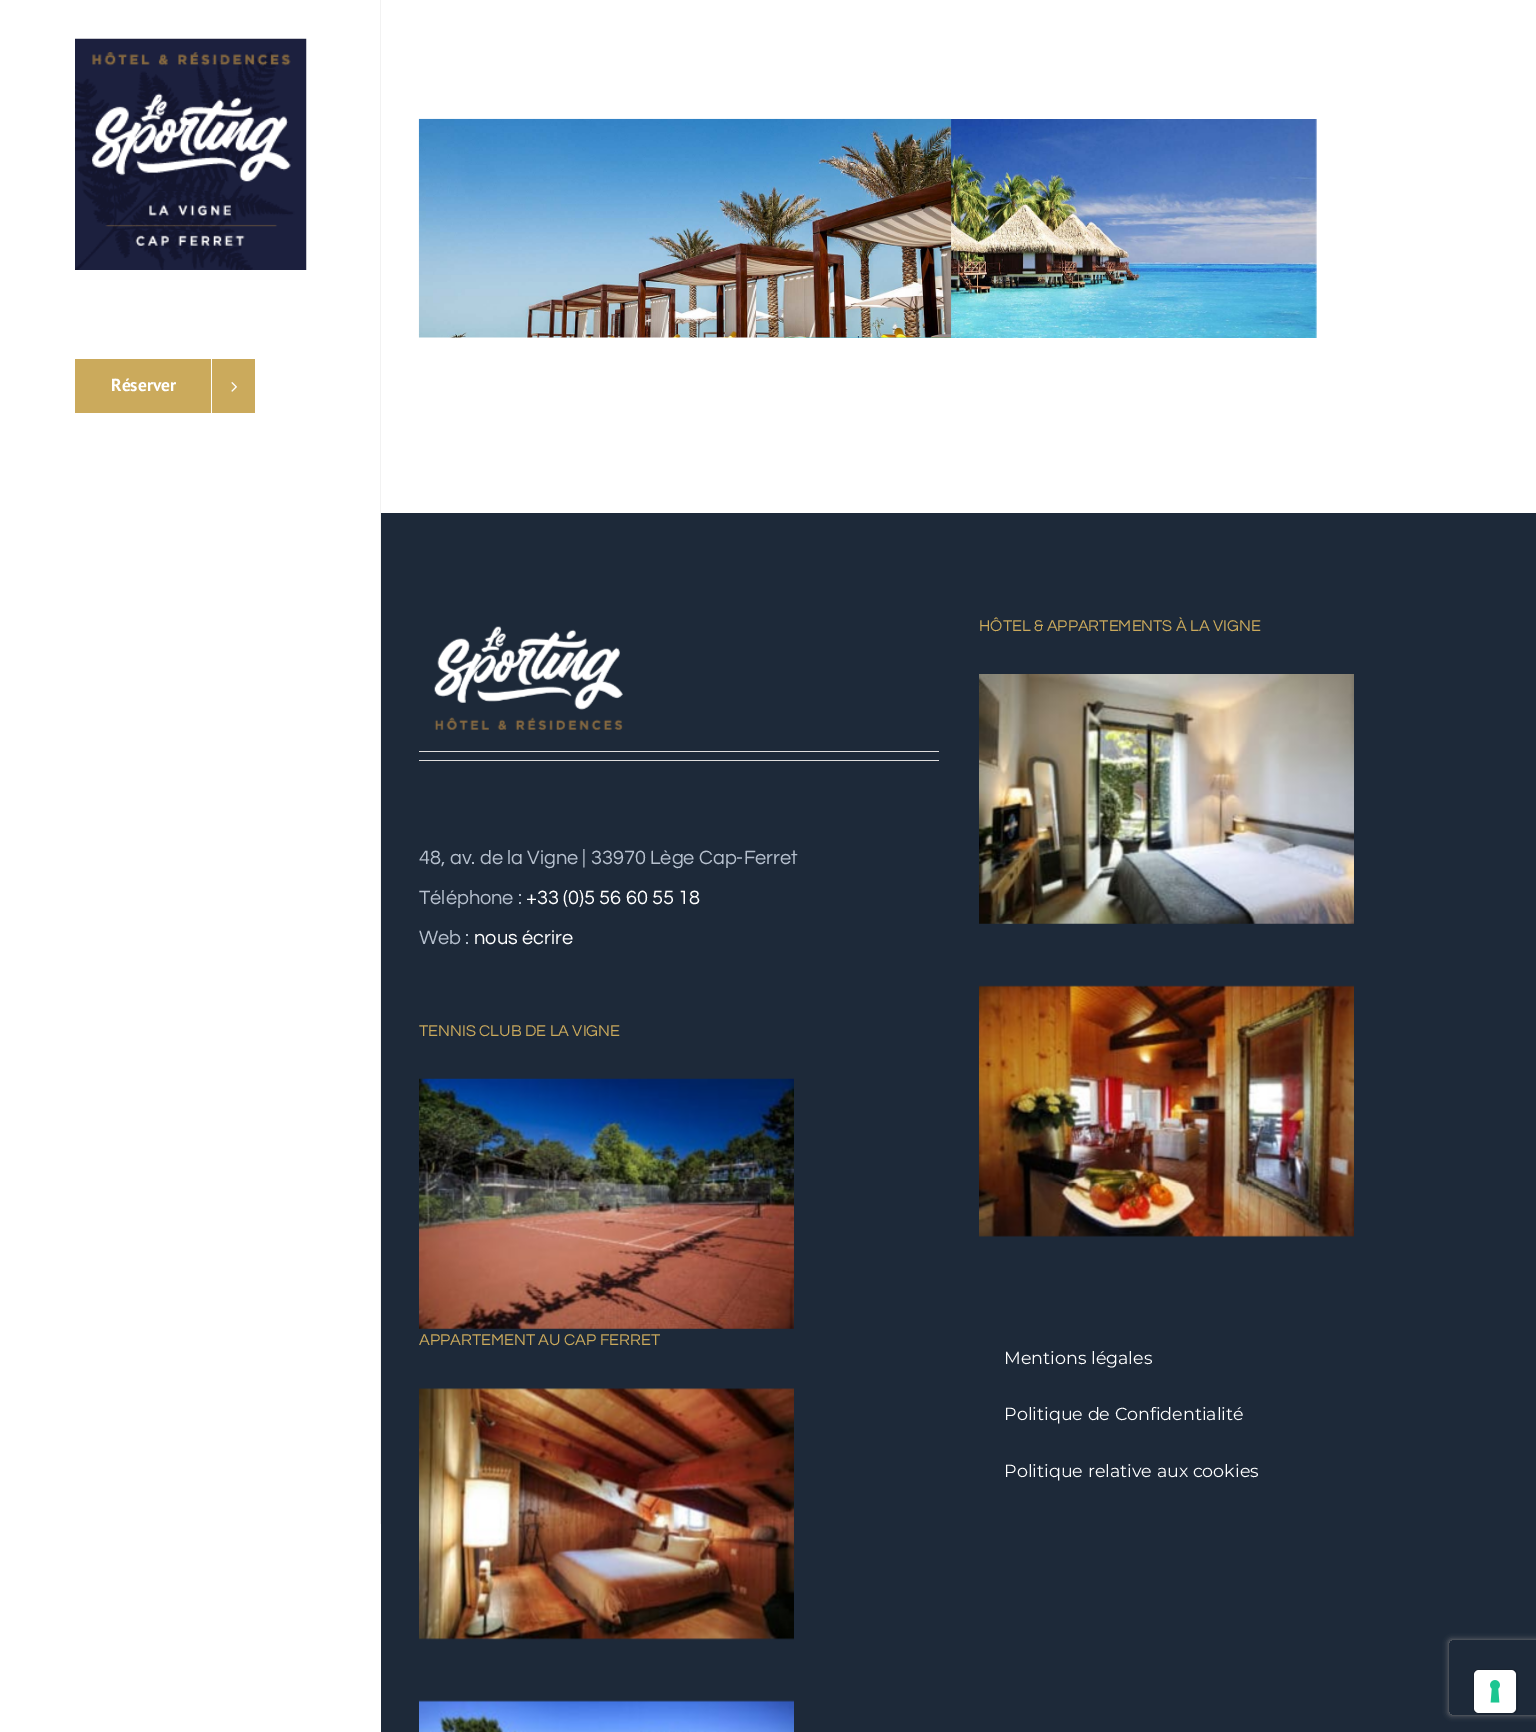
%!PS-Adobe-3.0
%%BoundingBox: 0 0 1536 1732
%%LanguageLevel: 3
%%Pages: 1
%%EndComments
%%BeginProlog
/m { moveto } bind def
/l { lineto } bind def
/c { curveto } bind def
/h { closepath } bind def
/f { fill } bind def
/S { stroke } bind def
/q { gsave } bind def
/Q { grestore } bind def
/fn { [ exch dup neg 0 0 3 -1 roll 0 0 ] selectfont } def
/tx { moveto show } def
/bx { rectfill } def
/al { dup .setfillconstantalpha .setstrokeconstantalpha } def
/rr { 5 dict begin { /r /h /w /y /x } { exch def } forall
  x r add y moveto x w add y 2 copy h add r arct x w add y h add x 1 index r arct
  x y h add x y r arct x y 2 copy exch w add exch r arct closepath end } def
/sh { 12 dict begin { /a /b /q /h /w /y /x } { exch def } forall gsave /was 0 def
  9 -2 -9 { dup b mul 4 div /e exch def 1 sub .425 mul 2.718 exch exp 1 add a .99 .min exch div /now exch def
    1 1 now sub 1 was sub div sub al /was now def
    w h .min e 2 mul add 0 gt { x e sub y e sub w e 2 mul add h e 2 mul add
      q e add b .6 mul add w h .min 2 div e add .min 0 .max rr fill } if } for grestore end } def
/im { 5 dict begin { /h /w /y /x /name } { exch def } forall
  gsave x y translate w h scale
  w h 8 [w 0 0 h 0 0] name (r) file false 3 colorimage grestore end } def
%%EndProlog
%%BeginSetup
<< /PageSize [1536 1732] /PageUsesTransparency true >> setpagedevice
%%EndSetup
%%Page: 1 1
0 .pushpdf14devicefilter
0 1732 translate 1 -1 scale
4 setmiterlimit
1 setgray
0 0 1536 1732 bx
(image1.raw) 784 119 533 219 im
(image0.raw) 418 118 534 220 im
(image2.raw) 75 38 232 232 im
0.796 0.667 0.361 setrgbcolor
75 359 180 54 bx
/PTSans-Bold 17.5 fn
1 setgray
(Réserver) 111 391 tx
211 359 1 54 bx
(image3.raw) 231 382 6 10 im
0.949 setgray
380 0 1 1524 bx
0.114 0.161 0.224 setrgbcolor
381 513 1155 1219 bx
/Questrial-Regular 16.25 fn
0.796 0.667 0.361 setrgbcolor
(HÔTEL & APPARTEMENTS À LA VIGNE) 979 631 tx
(image4.raw) 979 674 375 250 im
(image5.raw) 979 985 375 252 im
(image6.raw) 434 626 189 104 im
0.878 0.871 0.871 setrgbcolor
419 751 520 1 bx
419 760 520 1 bx
/Questrial-Regular 20 fn
0.714 0.753 0.808 setrgbcolor
(48, av. de la Vigne | 33970 Lège Cap-Ferret) 419 864 tx
(Téléphone :) 419 904 tx
1 setgray
(+33 \(0\)5 56 60 55 18) 526 904 tx
0.714 0.753 0.808 setrgbcolor
(Web :) 419 944 tx
1 setgray
(nous écrire) 474 944 tx
/Questrial-Regular 16.25 fn
0.796 0.667 0.361 setrgbcolor
(TENNIS CLUB DE LA VIGNE) 419 1036 tx
(image7.raw) 419 1078 375 251 im
(APPARTEMENT AU CAP FERRET) 419 1345 tx
(image8.raw) 419 1388 375 252 im
(image9.raw) 419 1700 375 32 im
/Montserrat-Thin 17.5 fn
1 setgray
(Mentions légales) 1004 1364 tx
(Politique de Confidentialité) 1004 1420 tx
(Politique relative aux cookies) 1004 1477 tx
q
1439 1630 m 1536 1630 l 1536 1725 l 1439 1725 l h 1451.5 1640 m 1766.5 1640 l 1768 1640 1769 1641 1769 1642.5 c 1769 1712.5 l 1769 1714 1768 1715 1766.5 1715 c 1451.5 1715 l 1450 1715 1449 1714 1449 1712.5 c 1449 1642.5 l 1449 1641 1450 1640 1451.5 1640 c h eoclip newpath
0.502 setgray
1449 1640 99 75 2.5 3 1 sh
Q
0.098 0.137 0.188 setrgbcolor
1473.5 1669.5 44 44 5.5 rr S
1 setgray
1474 1670 42 43 5 rr f
(image10.raw) 1490 1680 10 23 im
.poppdf14devicefilter showpage
%%EOF
